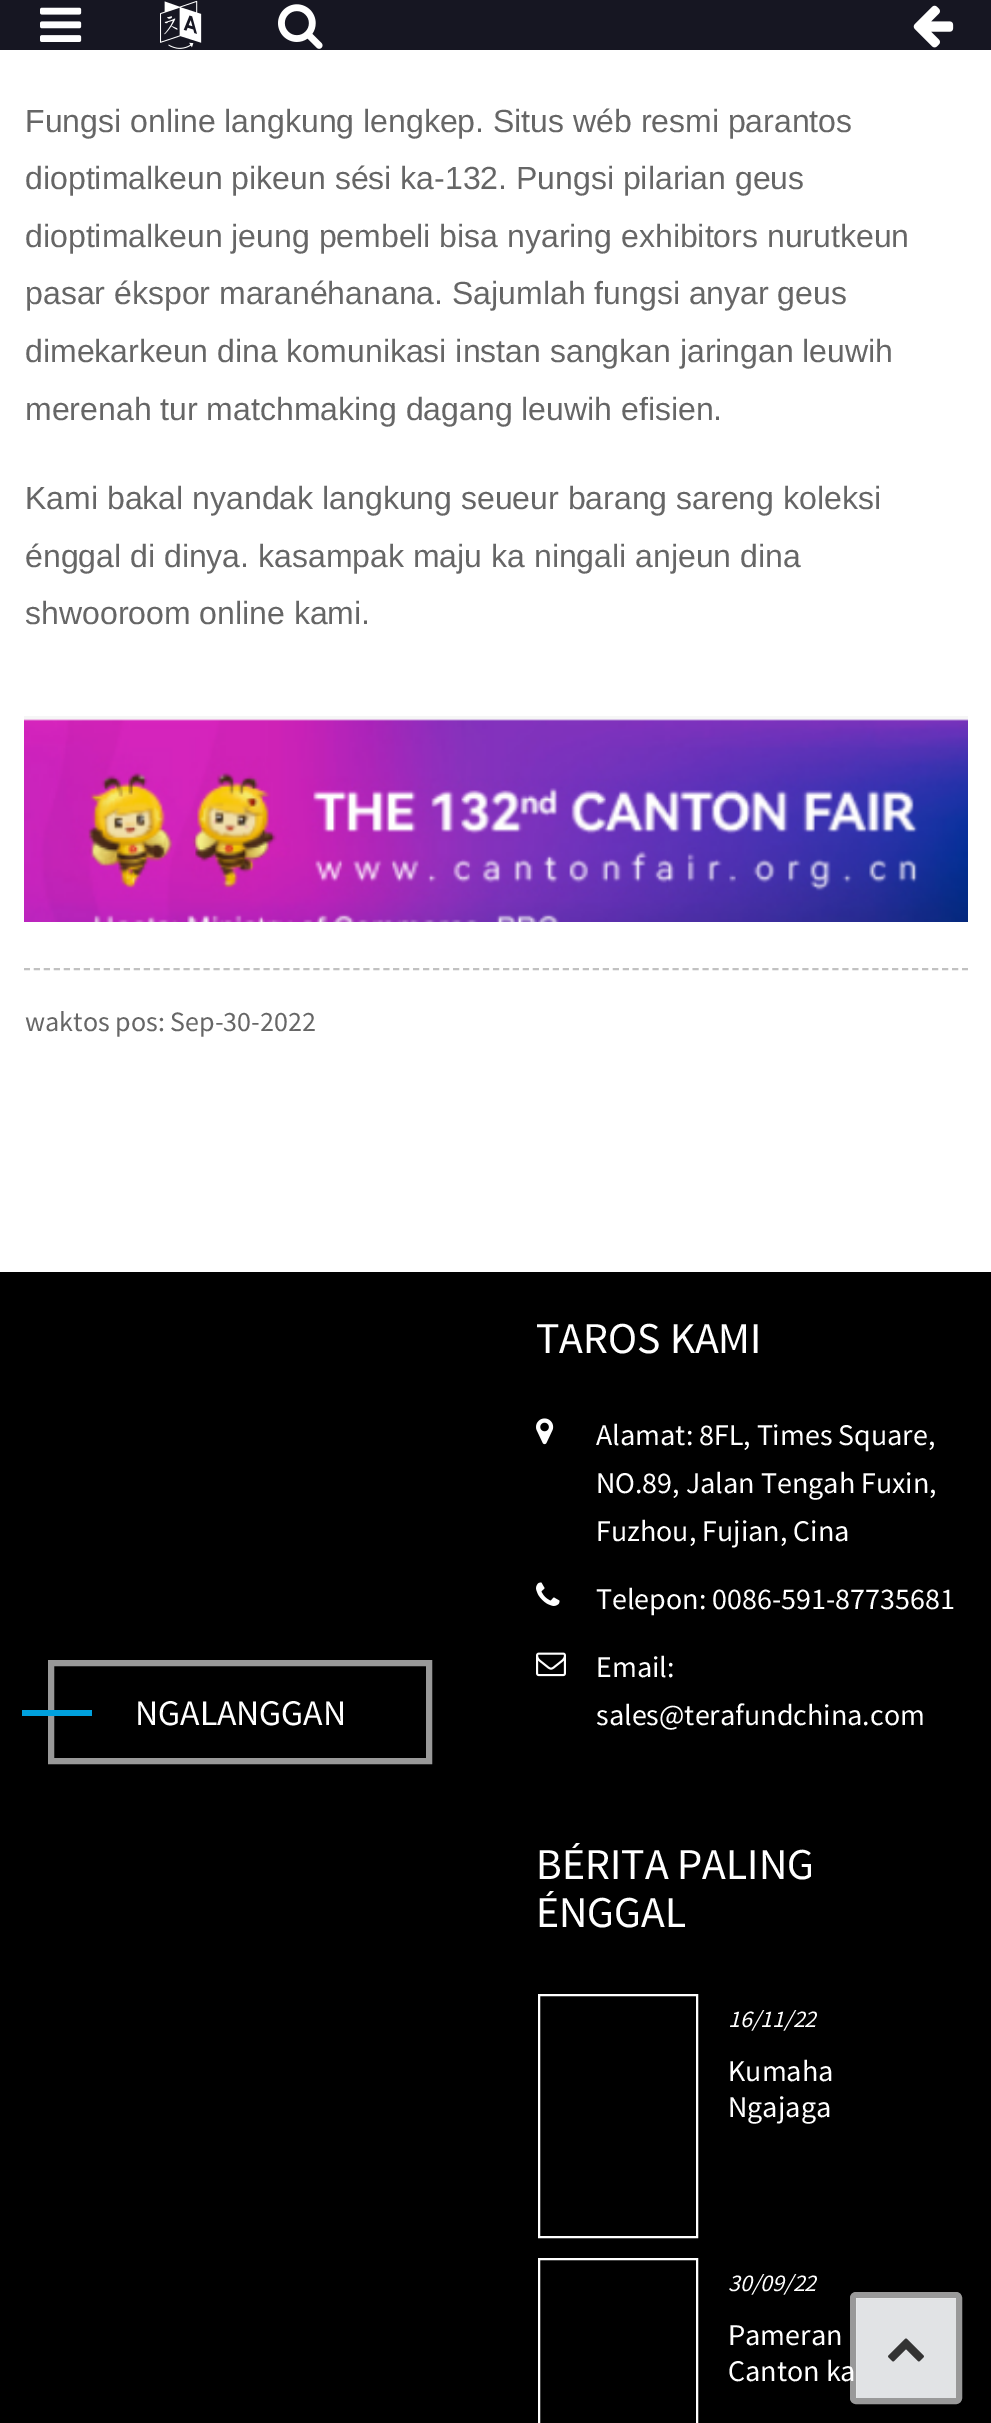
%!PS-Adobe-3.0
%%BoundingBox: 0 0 991 2423
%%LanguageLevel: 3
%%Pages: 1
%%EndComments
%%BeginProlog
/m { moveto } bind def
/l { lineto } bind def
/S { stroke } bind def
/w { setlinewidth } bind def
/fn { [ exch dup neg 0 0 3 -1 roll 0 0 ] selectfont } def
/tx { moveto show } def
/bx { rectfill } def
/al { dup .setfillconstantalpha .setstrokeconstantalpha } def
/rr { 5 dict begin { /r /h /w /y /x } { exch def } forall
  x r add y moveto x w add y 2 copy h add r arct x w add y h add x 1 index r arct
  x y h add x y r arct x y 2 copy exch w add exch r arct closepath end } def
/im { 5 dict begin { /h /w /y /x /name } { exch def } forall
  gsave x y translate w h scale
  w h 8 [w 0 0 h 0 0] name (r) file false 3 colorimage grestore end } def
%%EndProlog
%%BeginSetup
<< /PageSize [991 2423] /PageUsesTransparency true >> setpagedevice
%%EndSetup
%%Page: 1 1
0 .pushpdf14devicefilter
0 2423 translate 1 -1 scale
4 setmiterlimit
1 setgray
0 0 991 2423 bx
0.086 0.086 0.133 setrgbcolor
0 0 991 50 bx
(image0.raw) 40 7 42 35 im
(image1.raw) 160 0 42 49 im
(image2.raw) 278 4 45 45 im
(image3.raw) 913 5 41 43 im
/LiberationSans-Regular 32 fn
0.4 setgray
(Fungsi online langkung lengkep. Situs wéb resmi parantos) 25 132 tx
(dioptimalkeun pikeun sési ka-132. Pungsi pilarian geus) 25 189 tx
(dioptimalkeun jeung pembeli bisa nyaring exhibitors nurutkeun) 25 247 tx
(pasar ékspor maranéhanana. Sajumlah fungsi anyar geus) 25 304 tx
(dimekarkeun dina komunikasi instan sangkan jaringan leuwih) 25 362 tx
(merenah tur matchmaking dagang leuwih efisien.) 25 420 tx
(Kami bakal nyandak langkung seueur barang sareng koleksi) 25 509 tx
(énggal di dinya. kasampak maju ka ningali anjeun dina) 25 567 tx
(shwooroom online kami.) 25 624 tx
(image4.raw) 24 716 944 206 im
0.757 setgray
2 w
[6 3.98] 0 setdash
24 969 m 968 969 l S
/SourceSansPro-Regular 28 fn
0.4 setgray
(waktos pos: Sep-30-2022) 25 1031 tx
0 setgray
0 1272 991 1151 bx
0.6 setgray
6 w
[] 0 setdash
51 1663 378 98 rectstroke
0 0.627 0.867 setrgbcolor
22 1710 70 6 bx
/SourceSansPro-Regular 36 fn
1 setgray
(NGALANGGAN) 135 1725 tx
/SourceSansPro-Regular 44 fn
(TAROS KAMI) 536 1353 tx
(image5.raw) 536 1418 18 27 im
/SourceSansPro-Regular 30 fn
(Alamat: 8FL, Times Square,) 596 1445 tx
(NO.89, Jalan Tengah Fuxin,) 596 1493 tx
(Fuzhou, Fujian, Cina) 596 1541 tx
(image6.raw) 536 1582 24 24 im
(Telepon: 0086-591-87735681) 596 1609 tx
(image7.raw) 536 1652 30 25 im
(Email:) 596 1677 tx
(sales@terafundchina.com) 596 1725 tx
/SourceSansPro-Regular 44 fn
(BÉRITA PALING) 536 1879 tx
(ÉNGGAL) 536 1927 tx
2 w
539 1995 158 242 rectstroke
/SourceSansPro-Italic 24 fn
(16/11/22) 728 2027 tx
/SourceSansPro-Regular 30 fn
(Kumaha) 728 2081 tx
(Ngajaga) 728 2117 tx
539 2259 158 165 rectstroke
/SourceSansPro-Italic 24 fn
(30/09/22) 728 2291 tx
/SourceSansPro-Regular 30 fn
(Pameran) 728 2345 tx
(Canton ka) 728 2381 tx
0.882 0.89 0.898 setrgbcolor
856 2298 100 100 bx
0.6 al
1 setgray
6 w
853 2295 106 106 3 rr S
1 al
(image8.raw) 888 2338 36 24 im
.poppdf14devicefilter showpage
%%EOF
